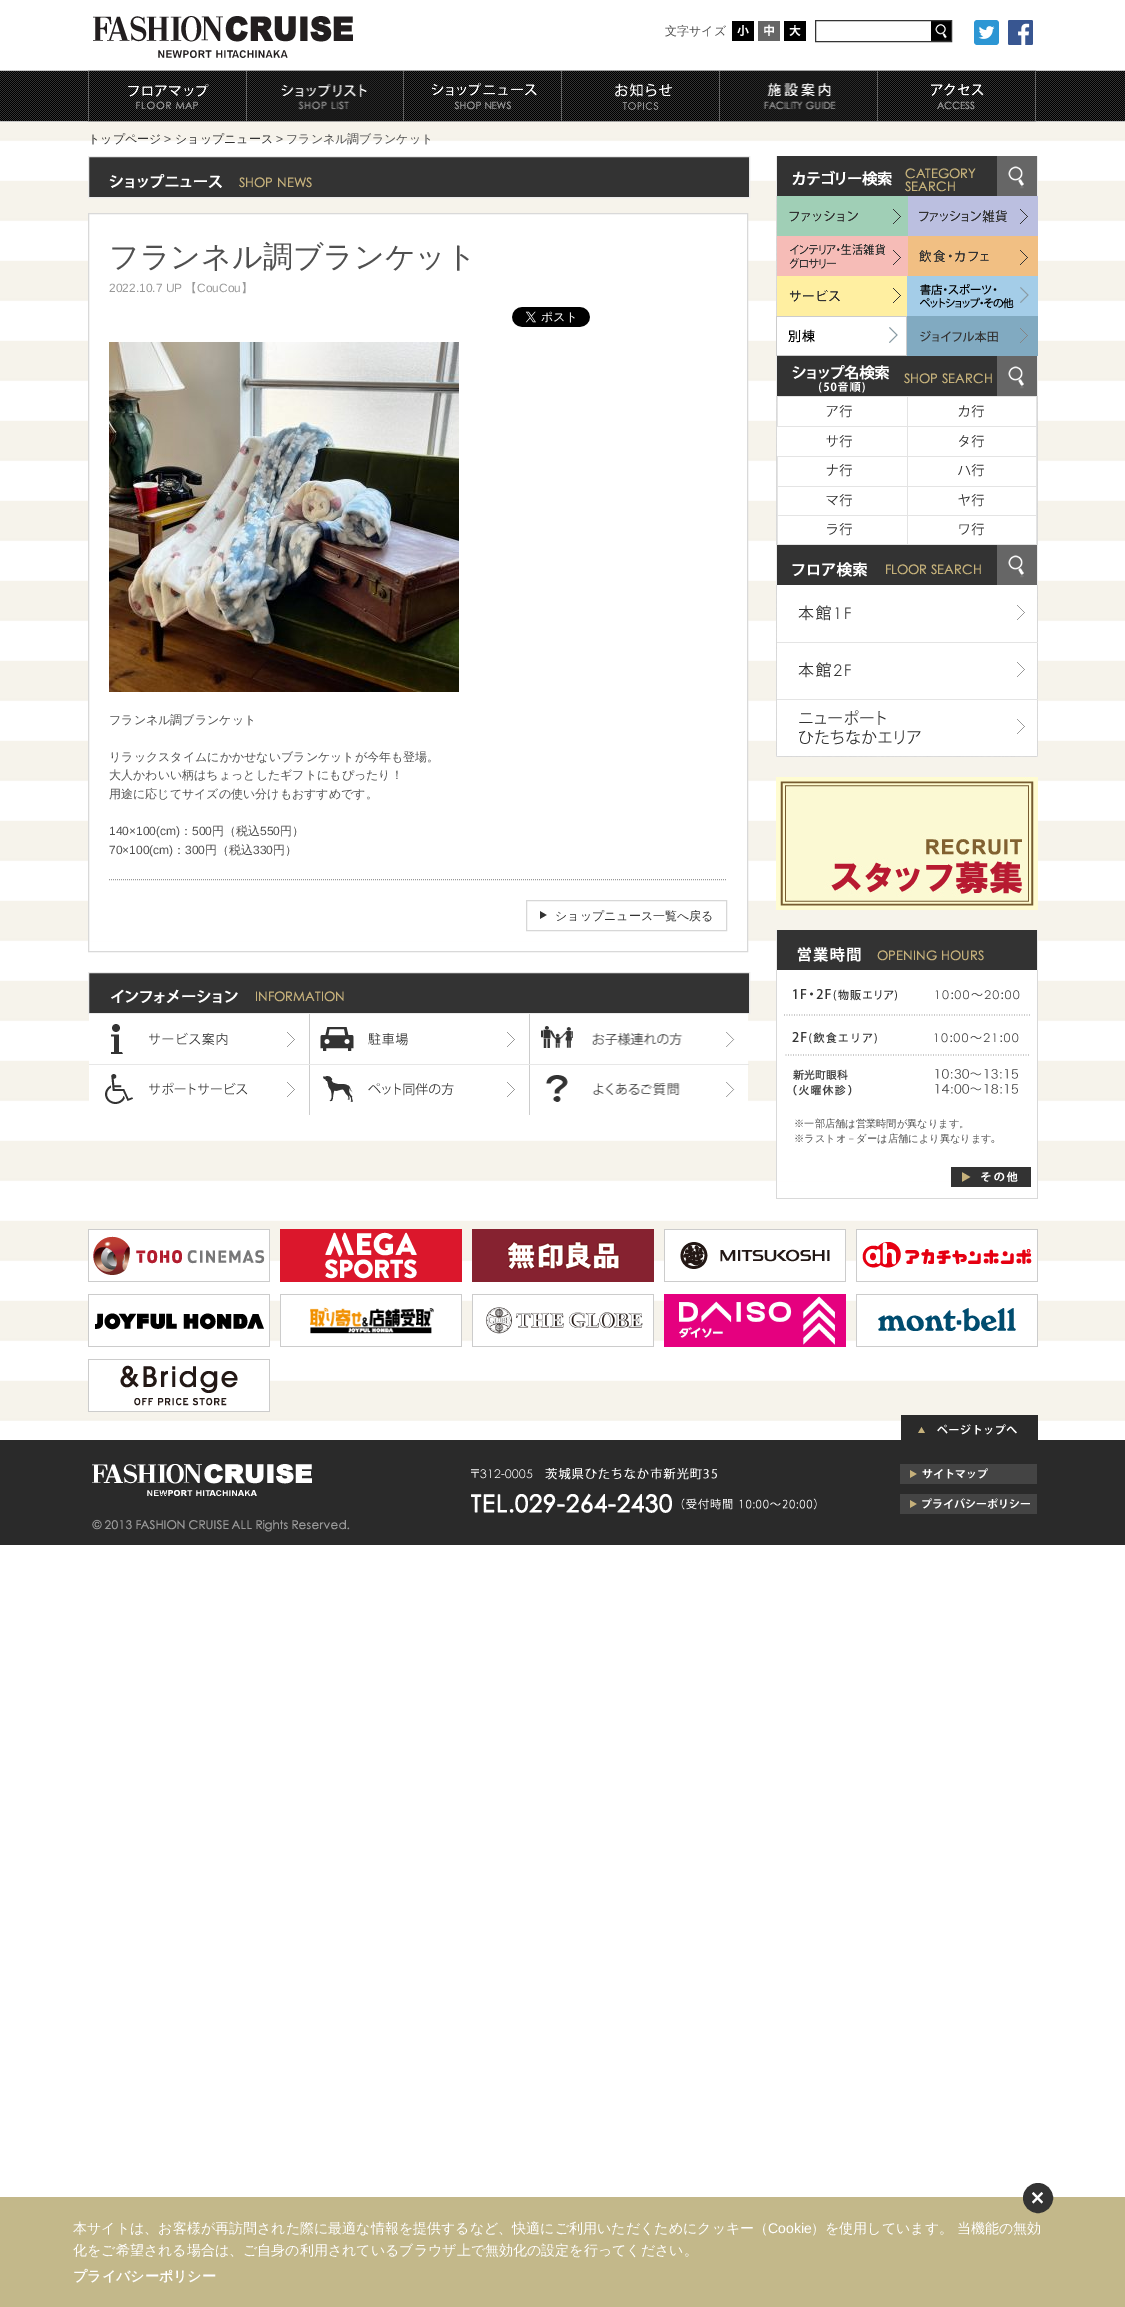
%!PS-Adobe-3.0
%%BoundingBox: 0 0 1125 2307
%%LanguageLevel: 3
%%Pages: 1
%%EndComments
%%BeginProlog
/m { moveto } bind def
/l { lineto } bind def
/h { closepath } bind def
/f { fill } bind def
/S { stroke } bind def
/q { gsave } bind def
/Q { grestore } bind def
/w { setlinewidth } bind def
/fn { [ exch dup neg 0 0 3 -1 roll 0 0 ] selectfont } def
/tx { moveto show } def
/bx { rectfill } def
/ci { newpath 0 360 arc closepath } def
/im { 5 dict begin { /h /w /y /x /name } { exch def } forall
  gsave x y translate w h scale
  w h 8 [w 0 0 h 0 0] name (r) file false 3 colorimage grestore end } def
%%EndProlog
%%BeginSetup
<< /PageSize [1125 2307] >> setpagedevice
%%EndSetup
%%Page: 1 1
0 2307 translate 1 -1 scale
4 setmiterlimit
1 setgray
0 0 1125 2307 bx
(image0.raw) 93 16 260 42 im
/WenQuanYiZenHei-Medium 12 fn
0.314 setgray
(文字サイズ) 665 35 tx
(image1.raw) 732 21 22 20 im
(image2.raw) 758 21 22 20 im
(image3.raw) 784 21 22 20 im
0.204 setgray
815.5 20.5 136 21 rectstroke
(image4.raw) 931 21 20 20 im
(image5.raw) 974 20 25 25 im
(image6.raw) 1008 20 25 25 im
(image7.raw) 0 70 1125 52 im
(image8.raw) 88 70 158 52 im
(image9.raw) 246 70 158 52 im
(image10.raw) 404 70 158 52 im
(image11.raw) 562 70 158 52 im
(image12.raw) 720 70 158 52 im
(image13.raw) 878 70 158 52 im
(image14.raw) 0 122 1125 1299 im
0.2 setgray
(トップページ) 88 143 tx
/LiberationSans-Regular 12 fn
0.314 setgray
(>) 164 143 tx
/WenQuanYiZenHei-Medium 12 fn
0.2 setgray
(ショップニュース) 175 143 tx
/LiberationSans-Regular 12 fn
0.314 setgray
(>) 276 143 tx
/WenQuanYiZenHei-Medium 12 fn
(フランネル調ブランケット) 286 143 tx
0.2 setgray
88.5 156.5 m 749.5 156.5 l 749.5 197.5 l 88.5 197.5 l h q f Q
0.922 setgray
S
(image15.raw) 109 174 203 15 im
1 setgray
89 214 658 727 bx
0.851 setgray
88.5 213.5 659 738 rectstroke
/WenQuanYiZenHei-Medium 30 fn
0.314 setgray
(フランネル調ブランケット) 109 267 tx
/LiberationSans-Regular 12 fn
0.6 setgray
(2022.10.7 UP) 109 292 tx
/WenQuanYiZenHei-Medium 12 fn
(【) 185 292 tx
/LiberationSans-Regular 12 fn
(CouCou) 197 292 tx
/WenQuanYiZenHei-Medium 12 fn
(】) 241 292 tx
(image16.raw) 512 307 78 20 im
(image17.raw) 109 342 350 350 im
0.314 setgray
(フランネル調ブランケット) 109 724 tx
(リラックスタイムにかかせないブランケットが今年も登場。) 109 761 tx
(大人かわいい柄はちょっとしたギフトにもぴったり！) 109 779 tx
(用途に応じてサイズの使い分けもおすすめです。) 109 798 tx
/LiberationSans-Regular 12 fn
(140×100\(cm\)) 109 835 tx
/WenQuanYiZenHei-Medium 12 fn
(：) 180 835 tx
/LiberationSans-Regular 12 fn
(500) 192 835 tx
/WenQuanYiZenHei-Medium 12 fn
(円（税込) 212 835 tx
/LiberationSans-Regular 12 fn
(550) 260 835 tx
/WenQuanYiZenHei-Medium 12 fn
(円）) 280 835 tx
/LiberationSans-Regular 12 fn
(70×100\(cm\)) 109 854 tx
/WenQuanYiZenHei-Medium 12 fn
(：) 173 854 tx
/LiberationSans-Regular 12 fn
(300) 185 854 tx
/WenQuanYiZenHei-Medium 12 fn
(円（税込) 205 854 tx
/LiberationSans-Regular 12 fn
(330) 253 854 tx
/WenQuanYiZenHei-Medium 12 fn
(円）) 273 854 tx
0.6 setgray
[1 1] 0 setdash
109 879.5 m 727 879.5 l S
0.843 setgray
[] 0 setdash
526.5 900.5 200 30 rectstroke
(image18.raw) 540 911 7 8 im
0.2 setgray
(ショップニュース一覧へ戻る) 555 920 tx
88.5 972.5 m 749.5 972.5 l 749.5 1013.5 l 88.5 1013.5 l h q f Q
0.922 setgray
S
(image19.raw) 111 989 233 15 im
(image20.raw) 89 1014 220 51 im
(image21.raw) 309 1014 221 51 im
(image22.raw) 530 1014 219 51 im
(image23.raw) 89 1065 220 39 im
(image24.raw) 309 1065 221 50 im
(image25.raw) 530 1065 218 37 im
0.2 setgray
777 156 220 40 bx
(image26.raw) 997 156 40 40 im
0.922 setgray
1037 156 1 40 bx
776 156 1 40 bx
(image27.raw) 792 168 184 24 im
(image28.raw) 776 196 131 40 im
(image29.raw) 907 196 131 40 im
(image30.raw) 776 236 131 40 im
(image31.raw) 907 236 131 40 im
(image32.raw) 776 276 131 40 im
(image33.raw) 907 276 131 40 im
(image34.raw) 776 316 131 40 im
(image35.raw) 907 316 131 40 im
0.2 setgray
777 356 220 40 bx
(image26.raw) 997 356 40 40 im
0.922 setgray
1037 356 1 40 bx
776 356 1 40 bx
(image36.raw) 792 365 200 28 im
(image37.raw) 776 396 131 30 im
(image38.raw) 907 396 131 30 im
(image39.raw) 776 426 131 30 im
(image40.raw) 907 426 131 30 im
(image41.raw) 776 456 131 30 im
(image42.raw) 907 456 131 30 im
(image43.raw) 776 486 131 30 im
(image44.raw) 907 486 131 30 im
(image45.raw) 776 516 131 29 im
(image46.raw) 907 516 131 29 im
0.2 setgray
777 545 220 40 bx
(image26.raw) 997 545 40 40 im
0.922 setgray
1037 545 1 40 bx
776 545 1 40 bx
(image47.raw) 792 562 189 15 im
(image48.raw) 776 585 262 57 im
(image49.raw) 776 642 262 57 im
(image50.raw) 776 699 262 58 im
(image51.raw) 776 777 262 133 im
0.2 setgray
777 930 260 40 bx
0.922 setgray
1037 930 1 40 bx
776 930 1 40 bx
(image52.raw) 797 947 187 15 im
1 setgray
777 980 260 201 bx
0.851 setgray
1037 970 1 229 bx
776 1198 262 1 bx
776 970 1 229 bx
(image53.raw) 784 989 246 27 im
(image54.raw) 785 1032 244 24 im
(image55.raw) 793 1069 225 27 im
/WenQuanYiZenHei-Medium 10.25 fn
0.314 setgray
(※一部店舗は営業時間が異なります。) 794 1127 tx
(※ラストオ－ダーは店舗により異なります) 794 1142 tx
/IPAGothic-Regular 10.25 fn
(｡) 991 1142 tx
(image56.raw) 951 1167 80 20 im
(image57.raw) 88 1229 182 53 im
(image58.raw) 280 1229 182 53 im
(image59.raw) 472 1229 182 53 im
(image60.raw) 664 1229 182 53 im
(image61.raw) 856 1229 182 53 im
(image62.raw) 88 1294 182 53 im
(image63.raw) 280 1294 182 53 im
(image64.raw) 472 1294 182 53 im
(image65.raw) 664 1294 182 53 im
(image66.raw) 856 1294 182 53 im
(image67.raw) 88 1359 182 53 im
0.165 setgray
0 1440 1125 105 bx
901 1415 137 25 bx
(image68.raw) 918 1424 99 11 im
(image69.raw) 92 1464 220 32 im
(image70.raw) 471 1467 246 13 im
(image71.raw) 900 1464 137 20 im
(image72.raw) 900 1494 137 20 im
(image73.raw) 471 1493 346 20 im
(image74.raw) 92 1519 258 13 im
0.765 0.722 0.541 setrgbcolor
0 2197 1125 110 bx
0.2 setgray
1038 2198 14 ci q f Q
2 w
S
1 setgray
1041.5 2192 m 1043 2193.5 l 1033.5 2203.5 l 1032 2202 l h f
1032 2193.5 m 1033.5 2192 l 1043 2202 l 1041.5 2203.5 l h f
/WenQuanYiZenHei-Medium 14 fn
(本サイトは、お客様が再訪問された際に最適な情報を提供するなど、快適にご利用いただくためにクッキー（) 73 2233 tx
/LiberationSans-Regular 14 fn
(Cookie) 768 2233 tx
/WenQuanYiZenHei-Medium 14 fn
(）を使用しています。) 811 2233 tx
(当機能の無効) 957 2233 tx
(化をご希望される場合は、ご自身の利用されているブラウザ上で無効化の設定を行ってください。) 73 2255 tx
/WenQuanYiZenHei-Bold 14 fn
(プライバシーポリシー) 73 2281 tx
showpage
%%EOF
